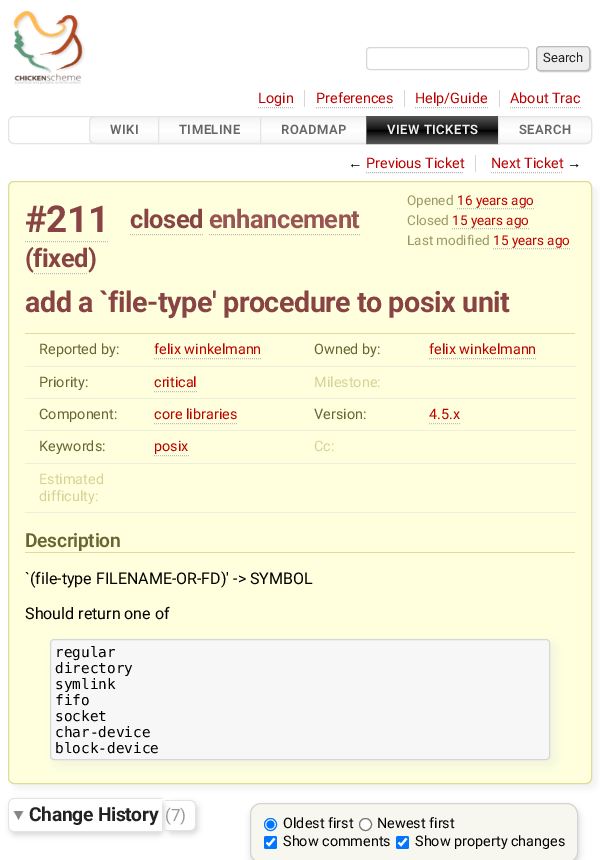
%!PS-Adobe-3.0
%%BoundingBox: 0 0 600 860
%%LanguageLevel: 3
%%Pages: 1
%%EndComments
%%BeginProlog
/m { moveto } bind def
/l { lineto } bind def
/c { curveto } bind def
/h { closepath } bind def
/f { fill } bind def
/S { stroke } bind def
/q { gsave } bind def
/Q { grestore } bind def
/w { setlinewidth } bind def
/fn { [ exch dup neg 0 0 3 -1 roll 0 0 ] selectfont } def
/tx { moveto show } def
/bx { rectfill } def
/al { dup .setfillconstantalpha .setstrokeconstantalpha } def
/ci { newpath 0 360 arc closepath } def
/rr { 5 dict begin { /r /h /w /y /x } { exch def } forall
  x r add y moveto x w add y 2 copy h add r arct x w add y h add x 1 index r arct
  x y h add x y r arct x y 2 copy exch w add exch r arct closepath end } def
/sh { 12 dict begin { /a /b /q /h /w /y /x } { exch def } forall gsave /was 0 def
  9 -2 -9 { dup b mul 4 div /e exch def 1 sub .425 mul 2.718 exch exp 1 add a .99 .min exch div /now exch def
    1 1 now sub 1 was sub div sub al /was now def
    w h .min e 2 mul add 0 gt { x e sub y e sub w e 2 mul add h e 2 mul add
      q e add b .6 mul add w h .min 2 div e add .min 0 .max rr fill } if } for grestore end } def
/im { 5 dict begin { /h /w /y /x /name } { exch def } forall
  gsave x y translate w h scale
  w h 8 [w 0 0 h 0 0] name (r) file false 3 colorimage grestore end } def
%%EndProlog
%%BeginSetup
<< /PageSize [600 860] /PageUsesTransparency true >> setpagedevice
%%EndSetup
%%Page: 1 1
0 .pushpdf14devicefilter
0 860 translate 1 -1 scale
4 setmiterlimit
1 setgray
0 0 600 860 bx
(image0.raw) 13 10 72 75 im
0.843 setgray
366.5 47.5 162 22 3.5 rr S
0.8 setgray
537 47 54 25 4 0.5 1 sh
0.933 setgray
536.5 46.5 53 24 3.5 rr q f Q
0.733 setgray
S
/Roboto-Regular 13 fn
0.133 setgray
(Search) 543 62 tx
0.843 setgray
304 90 1 17 bx
/Roboto-Regular 14.4 fn
0.733 0 0 setrgbcolor
(Login) 258 103 tx
0.733 setgray
[1 1] 0 setdash
258 107.5 m 293 107.5 l S
0.843 setgray
404 90 1 17 bx
0.733 0 0 setrgbcolor
(Preferences) 316 103 tx
0.733 setgray
316 107.5 m 393 107.5 l S
0.843 setgray
499 90 1 17 bx
0.733 0 0 setrgbcolor
(Help/Guide) 415 103 tx
0.733 setgray
415 107.5 m 488 107.5 l S
0.733 0 0 setrgbcolor
(About Trac) 510 103 tx
0.733 setgray
510 107.5 m 581 107.5 l S
0.894 setgray
[] 0 setdash
8.5 116.5 583 27 5.5 rr S
q
95 116 m 160 116 l 160 144 l 95 144 l 91.5 144 89 141.5 89 138 c 89 122 l 89 118.5 91.5 116 95 116 c h clip newpath
q 89 117 m 158 117 l 158 143 l 89 143 l h clip newpath
<< /ShadingType 2 /ColorSpace /DeviceRGB /Coords [125 117 125 143] /Extend [true true] /Function << /FunctionType 3 /Domain [0 1] /Functions [<< /FunctionType 2 /Domain [0 1] /C0 [0.949 0.949 0.949] /C1 [0.98 0.98 0.98] /N 1 >> << /FunctionType 2 /Domain [0 1] /C0 [0.98 0.98 0.98] /C1 [0.996 0.996 0.996] /N 1 >> << /FunctionType 2 /Domain [0 1] /C0 [0.996 0.996 0.996] /C1 [1 1 1] /N 1 >> << /FunctionType 2 /Domain [0 1] /C0 [1 1 1] /C1 [0.98 0.98 0.98] /N 1 >> << /FunctionType 2 /Domain [0 1] /C0 [0.98 0.98 0.98] /C1 [0.949 0.949 0.949] /N 1 >>] /Bounds [0.25 0.49 0.51 0.85] /Encode [0 1 0 1 0 1 0 1 0 1] >> >> shfill Q
Q
95 116.5 m 159.5 116.5 l 159.5 143.5 l 95 143.5 l 92 143.5 89.5 141 89.5 138 c 89.5 122 l 89.5 119 92 116.5 95 116.5 c h S
/Roboto-SemiBold 13 fn
0.4 setgray
110 134 m 0.5 0 (WIKI) ashow
q 159 117 m 260 117 l 260 143 l 159 143 l h clip newpath
<< /ShadingType 2 /ColorSpace /DeviceRGB /Coords [210 117 210 143] /Extend [true true] /Function << /FunctionType 3 /Domain [0 1] /Functions [<< /FunctionType 2 /Domain [0 1] /C0 [0.949 0.949 0.949] /C1 [0.98 0.98 0.98] /N 1 >> << /FunctionType 2 /Domain [0 1] /C0 [0.98 0.98 0.98] /C1 [0.996 0.996 0.996] /N 1 >> << /FunctionType 2 /Domain [0 1] /C0 [0.996 0.996 0.996] /C1 [1 1 1] /N 1 >> << /FunctionType 2 /Domain [0 1] /C0 [1 1 1] /C1 [0.98 0.98 0.98] /N 1 >> << /FunctionType 2 /Domain [0 1] /C0 [0.98 0.98 0.98] /C1 [0.949 0.949 0.949] /N 1 >>] /Bounds [0.25 0.49 0.51 0.85] /Encode [0 1 0 1 0 1 0 1 0 1] >> >> shfill Q
0.894 setgray
158.5 116.5 102 27 rectstroke
0.4 setgray
179 134 m 0.5 0 (TIMELINE) ashow
q 261 117 m 366 117 l 366 143 l 261 143 l h clip newpath
<< /ShadingType 2 /ColorSpace /DeviceRGB /Coords [314 117 314 143] /Extend [true true] /Function << /FunctionType 3 /Domain [0 1] /Functions [<< /FunctionType 2 /Domain [0 1] /C0 [0.949 0.949 0.949] /C1 [0.98 0.98 0.98] /N 1 >> << /FunctionType 2 /Domain [0 1] /C0 [0.98 0.98 0.98] /C1 [0.996 0.996 0.996] /N 1 >> << /FunctionType 2 /Domain [0 1] /C0 [0.996 0.996 0.996] /C1 [1 1 1] /N 1 >> << /FunctionType 2 /Domain [0 1] /C0 [1 1 1] /C1 [0.98 0.98 0.98] /N 1 >> << /FunctionType 2 /Domain [0 1] /C0 [0.98 0.98 0.98] /C1 [0.949 0.949 0.949] /N 1 >>] /Bounds [0.25 0.49 0.51 0.85] /Encode [0 1 0 1 0 1 0 1 0 1] >> >> shfill Q
0.894 setgray
260.5 116.5 107 27 rectstroke
0.4 setgray
281 134 m 0.5 0 (ROADMAP) ashow
366.5 116.5 132 27 rectstroke
q 367 116 m 498 116 l 498 144 l 367 144 l h clip newpath
<< /ShadingType 2 /ColorSpace /DeviceRGB /Coords [433 116 433 144] /Extend [true true] /Function << /FunctionType 3 /Domain [0 1] /Functions [<< /FunctionType 2 /Domain [0 1] /C0 [0.333 0.333 0.333] /C1 [0.2 0.2 0.2] /N 1 >> << /FunctionType 2 /Domain [0 1] /C0 [0.2 0.2 0.2] /C1 [0.067 0.067 0.067] /N 1 >> << /FunctionType 2 /Domain [0 1] /C0 [0.067 0.067 0.067] /C1 [0 0 0] /N 1 >> << /FunctionType 2 /Domain [0 1] /C0 [0 0 0] /C1 [0.2 0.2 0.2] /N 1 >> << /FunctionType 2 /Domain [0 1] /C0 [0.2 0.2 0.2] /C1 [0.333 0.333 0.333] /N 1 >>] /Bounds [0.25 0.49 0.51 0.75] /Encode [0 1 0 1 0 1 0 1 0 1] >> >> shfill Q
0.933 setgray
387 134 m 0.5 0 (VIEW TICKETS) ashow
q
498 116 m 586 116 l 589.5 116 592 118.5 592 122 c 592 138 l 592 141.5 589.5 144 586 144 c 498 144 l h clip newpath
q 499 117 m 592 117 l 592 143 l 499 143 l h clip newpath
<< /ShadingType 2 /ColorSpace /DeviceRGB /Coords [545 117 545 143] /Extend [true true] /Function << /FunctionType 3 /Domain [0 1] /Functions [<< /FunctionType 2 /Domain [0 1] /C0 [0.949 0.949 0.949] /C1 [0.98 0.98 0.98] /N 1 >> << /FunctionType 2 /Domain [0 1] /C0 [0.98 0.98 0.98] /C1 [0.996 0.996 0.996] /N 1 >> << /FunctionType 2 /Domain [0 1] /C0 [0.996 0.996 0.996] /C1 [1 1 1] /N 1 >> << /FunctionType 2 /Domain [0 1] /C0 [1 1 1] /C1 [0.98 0.98 0.98] /N 1 >> << /FunctionType 2 /Domain [0 1] /C0 [0.98 0.98 0.98] /C1 [0.949 0.949 0.949] /N 1 >>] /Bounds [0.25 0.49 0.51 0.85] /Encode [0 1 0 1 0 1 0 1 0 1] >> >> shfill Q
Q
0.894 setgray
498.5 116.5 m 586 116.5 l 589 116.5 591.5 119 591.5 122 c 591.5 138 l 591.5 141 589 143.5 586 143.5 c 498.5 143.5 l h S
0.4 setgray
519 134 m 0.5 0 (SEARCH) ashow
0.843 setgray
475 155 1 17 bx
/LiberationSans-Regular 14.4 fn
0 setgray
(←) 348 168 tx
/Roboto-Regular 14.4 fn
0.733 0 0 setrgbcolor
(Previous Ticket) 366 168 tx
0.733 setgray
[1 1] 0 setdash
366 172.5 m 464 172.5 l S
0.733 0 0 setrgbcolor
(Next Ticket) 491 168 tx
0.733 setgray
491 172.5 m 563 172.5 l S
/LiberationSans-Regular 14.4 fn
0 setgray
(→) 567 168 tx
q
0 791 m 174 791 l 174 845 l 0 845 l h 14 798 m 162 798 l 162 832 l 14 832 l 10.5 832 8 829.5 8 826 c 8 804 l 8 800.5 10.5 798 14 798 c h eoclip newpath
0.843 setgray
10 801 154 34 6 3 1 sh
Q
(image1.raw) 13 811 11 9 im
0.894 setgray
14 798 m 162 798 l 162 832 l 14 832 l 11 832 8 829 8 826 c 8 804 l 8 801 11 798 14 798 c h 14 799 m 162 799 l 162 831 l 14 831 l 11 831 9 829 9 826 c 9 804 l 9 801 11 799 14 799 c h eofill
0.949 setgray
13 186 584 603 6 3 1 sh
1 1 0.867 setrgbcolor
8.5 181.5 583 602 5.5 rr q f Q
0.867 0.867 0.6 setrgbcolor
[] 0 setdash
S
/Roboto-Bold 37 fn
0.533 0.267 0.267 setrgbcolor
25 232 m -0.5 0 (#211) ashow
0.733 setgray
[1 1] 0 setdash
25 241.5 m 109 241.5 l S
/Roboto-Bold 25.5 fn
0.533 0.267 0.267 setrgbcolor
130 228 m -0.5 0 (closed) ashow
0.733 setgray
130 234.5 m 203 234.5 l S
0.6 0.333 0.333 setrgbcolor
209 228 m -0.5 0 (enhancement) ashow
0.733 setgray
209 234.5 m 360 234.5 l S
0.533 0.267 0.267 setrgbcolor
25 267 m -0.5 0 (\(fixed\)) ashow
0.733 setgray
34 273.5 m 88 273.5 l S
/Roboto-Regular 13.5 fn
0.6 0.6 0.4 setrgbcolor
(Opened) 407 205 tx
0.733 0 0 setrgbcolor
(16 years ago) 457 205 tx
0.733 setgray
457 208.5 m 534 208.5 l S
0.6 0.6 0.4 setrgbcolor
(Closed) 407 225 tx
0.733 0 0 setrgbcolor
(15 years ago) 452 225 tx
0.733 setgray
452 228.5 m 530 228.5 l S
0.6 0.6 0.4 setrgbcolor
(Last modified) 407 245 tx
0.733 0 0 setrgbcolor
(15 years ago) 493 245 tx
0.733 setgray
493 248.5 m 571 248.5 l S
/Roboto-Bold 28.75 fn
0.533 0.267 0.267 setrgbcolor
25 312 m -0.5 0 (add a `file-type' procedure to posix unit) ashow
0.867 0.867 0.6 setrgbcolor
25 333 550 1 bx
0.933 0.933 0.867 setrgbcolor
25 366 551 1 bx
/Roboto-Regular 14.4 fn
0.4 0.4 0.2 setrgbcolor
(Reported by:) 39 354 tx
0.733 0 0 setrgbcolor
(felix winkelmann) 154 354 tx
0.733 setgray
154 358.5 m 262 358.5 l S
0.4 0.4 0.2 setrgbcolor
(Owned by:) 314 354 tx
0.733 0 0 setrgbcolor
(felix winkelmann) 429 354 tx
0.733 setgray
429 358.5 m 537 358.5 l S
0.933 0.933 0.867 setrgbcolor
25 398 551 1 bx
0.4 0.4 0.2 setrgbcolor
(Priority:) 39 387 tx
0.733 0 0 setrgbcolor
(critical) 154 387 tx
0.733 setgray
154 391.5 m 197 391.5 l S
0.827 0.827 0.596 setrgbcolor
(Milestone:) 314 387 tx
0.933 0.933 0.867 setrgbcolor
25 430 551 1 bx
0.4 0.4 0.2 setrgbcolor
(Component:) 39 419 tx
0.733 0 0 setrgbcolor
(core libraries) 154 419 tx
0.733 setgray
154 423.5 m 237 423.5 l S
0.4 0.4 0.2 setrgbcolor
(Version:) 314 419 tx
0.733 0 0 setrgbcolor
(4.5.x) 429 419 tx
0.733 setgray
429 423.5 m 460 423.5 l S
0.933 0.933 0.867 setrgbcolor
25 463 551 1 bx
0.4 0.4 0.2 setrgbcolor
(Keywords:) 39 451 tx
0.733 0 0 setrgbcolor
(posix) 154 451 tx
0.733 setgray
154 455.5 m 189 455.5 l S
0.827 0.827 0.596 setrgbcolor
(Cc:) 314 451 tx
0.933 0.933 0.867 setrgbcolor
25 512 551 1 bx
0.827 0.827 0.596 setrgbcolor
(Estimated) 39 484 tx
(difficulty:) 39 501 tx
0.867 0.867 0.6 setrgbcolor
25 552 550 1 bx
/Roboto-SemiBold 19.25 fn
0.4 0.4 0.2 setrgbcolor
25 547 m -0.3 0 (Description) ashow
/Roboto-Regular 16 fn
0 setgray
(`\(file-type FILENAME-OR-FD\)' -> SYMBOL) 25 584 tx
(Should return one of) 25 619 tx
0.824 0.843 0.863 setrgbcolor
53 642 503 124 6 5.5 0.3 sh
0.969 setgray
50.5 639.5 499 120 3.5 rr q f Q
0.843 setgray
[] 0 setdash
S
/DejaVuSansMono-Regular 14.4 fn
0 setgray
(regular) 55 657 tx
(directory) 55 673 tx
(symlink) 55 689 tx
(fifo) 55 705 tx
(socket) 55 721 tx
(char-device) 55 737 tx
(block-device) 55 753 tx
q
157 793 m 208 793 l 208 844 l 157 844 l h 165 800 m 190 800 l 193.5 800 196 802.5 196 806 c 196 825 l 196 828.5 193.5 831 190 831 c 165 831 l h eoclip newpath
0.843 setgray
167 803 31 31 6 3 1 sh
Q
/Roboto-Bold 19.25 fn
0.133 setgray
29 821 m -0.3 0 (Change History) ashow
0.894 setgray
165 800 m 190 800 l 193.5 800 196 802.5 196 806 c 196 825 l 196 828.5 193.5 831 190 831 c 165 831 l h 165 801 m 190 801 l 193 801 195 803 195 806 c 195 825 l 195 828 193 830 190 830 c 165 830 l h eofill
/Roboto-Regular 17 fn
0.6 setgray
165 821 m -0.3 0 (\(7\)) ashow
0.831 setgray
251 807 328 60 11 3.5 1 sh
0.969 0.969 0.941 setrgbcolor
250.5 803.5 327 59 10.5 rr q f Q
0.831 setgray
S
1 setgray
270.5 824.5 6 ci q f Q
0 0.459 1 setrgbcolor
S
270.5 824.5 4 ci f
/Roboto-Regular 14.4 fn
0 setgray
(Oldest first) 283 828 tx
1 setgray
365.5 824.5 6 ci q f Q
0.463 setgray
S
0 setgray
(Newest first) 377 828 tx
0 0.459 1 setrgbcolor
264 836 13 13 2 rr f
1 setgray
2.1 w
266.5 842.5 m 269 845 l 274.5 838.5 l S
0 setgray
(Show comments) 283 846 tx
0 0.459 1 setrgbcolor
396 836 13 13 2 rr f
1 setgray
398.5 842.5 m 401 845 l 406.5 838.5 l S
0 setgray
(Show property changes) 415 846 tx
.poppdf14devicefilter showpage
%%EOF
